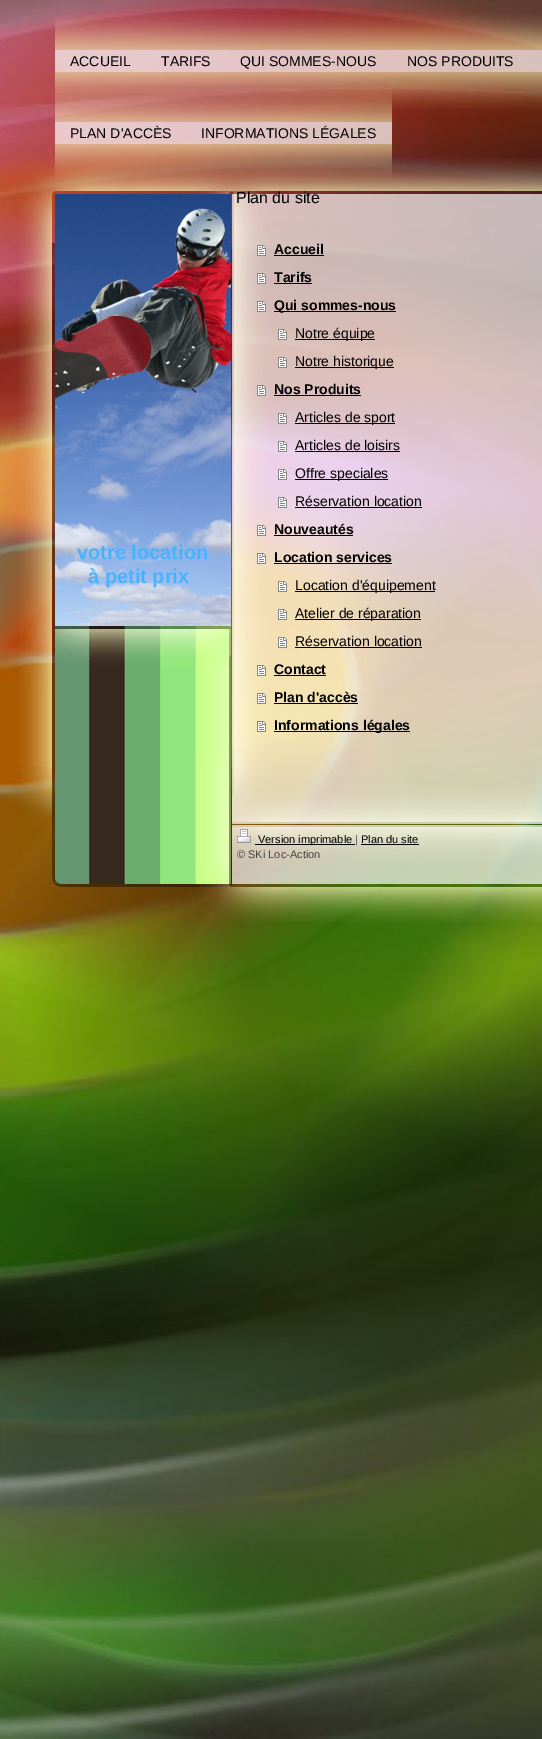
%!PS-Adobe-3.0
%%BoundingBox: 0 0 542 1739
%%LanguageLevel: 3
%%Pages: 1
%%EndComments
%%BeginProlog
/fn { [ exch dup neg 0 0 3 -1 roll 0 0 ] selectfont } def
/tx { moveto show } def
/bx { rectfill } def
/im { 5 dict begin { /h /w /y /x /name } { exch def } forall
  gsave x y translate w h scale
  w h 8 [w 0 0 h 0 0] name (r) file false 3 colorimage grestore end } def
%%EndProlog
%%BeginSetup
<< /PageSize [542 1739] >> setpagedevice
%%EndSetup
%%Page: 1 1
0 1739 translate 1 -1 scale
4 setmiterlimit
1 setgray
0 0 542 1739 bx
(image0.raw) 0 0 542 1739 im
(image1.raw) 55 14 91 94 im
/LiberationSans-Regular 14 fn
0 setgray
(ACCUEIL) 70 66 tx
(image2.raw) 146 14 79 94 im
(TARIFS) 161 66 tx
(image3.raw) 225 14 167 94 im
(QUI SOMMES-NOUS) 240 66 tx
(image4.raw) 392 14 136 94 im
(NOS PRODUITS) 407 66 tx
(image5.raw) 528 14 14 94 im
(image6.raw) 55 88 131 92 im
(PLAN D'ACCÈS) 70 138 tx
(image7.raw) 186 88 206 92 im
(INFORMATIONS LÉGALES) 201 138 tx
(image8.raw) 19 158 523 85 im
(image9.raw) 19 243 523 524 im
(image10.raw) 55 194 176 432 im
/LiberationSans-Bold 20 fn
0.282 0.698 0.992 setrgbcolor
(votre location) 77 559 tx
(à petit prix) 88 583 tx
(image11.raw) 55 626 176 41 im
/LiberationSans-Regular 16 fn
0 setgray
(Plan du site) 236 203 tx
(image12.raw) 257 245 9 11 im
/LiberationSans-Bold 14 fn
(Accueil) 274 254 tx
274 255 50 1 bx
(image13.raw) 257 273 9 11 im
(Tarifs) 274 282 tx
274 283 38 1 bx
(image14.raw) 257 301 9 11 im
274 311 122 1 bx
(Qui sommes-nous) 274 310 tx
(image15.raw) 278 329 9 11 im
295 339 80 1 bx
/LiberationSans-Regular 14 fn
(Notre équipe) 295 338 tx
(image16.raw) 278 357 9 11 im
295 367 99 1 bx
(Notre historique) 295 366 tx
(image17.raw) 257 385 9 11 im
/LiberationSans-Bold 14 fn
(Nos Produits) 274 394 tx
274 395 87 1 bx
(image18.raw) 278 413 9 11 im
295 423 100 1 bx
/LiberationSans-Regular 14 fn
(Articles de sport) 295 422 tx
(image19.raw) 278 441 9 11 im
(Articles de loisirs) 295 450 tx
295 451 105 1 bx
(image20.raw) 278 469 9 11 im
295 479 93 1 bx
(Offre speciales) 295 478 tx
(image21.raw) 278 497 9 11 im
(Réservation location) 295 506 tx
295 507 127 1 bx
(image22.raw) 257 525 9 11 im
/LiberationSans-Bold 14 fn
(Nouveautés) 274 534 tx
274 535 79 1 bx
(image23.raw) 257 553 9 11 im
(Location services) 274 562 tx
274 563 118 1 bx
(image24.raw) 278 581 9 11 im
295 591 140 1 bx
/LiberationSans-Regular 14 fn
(Location d'équipement) 295 590 tx
(image25.raw) 278 609 9 11 im
295 619 126 1 bx
(Atelier de réparation) 295 618 tx
(image26.raw) 278 637 9 11 im
(Réservation location) 295 646 tx
295 647 127 1 bx
(image27.raw) 257 665 9 11 im
/LiberationSans-Bold 14 fn
(Contact) 274 674 tx
274 675 52 1 bx
(image28.raw) 257 693 9 11 im
(Plan d'accès) 274 702 tx
274 703 84 1 bx
(image29.raw) 257 721 9 11 im
274 731 136 1 bx
(Informations légales) 274 730 tx
(image30.raw) 20 767 522 155 im
(image31.raw) 237 829 14 14 im
255 844 100 1 bx
/LiberationSans-Regular 11 fn
(Version imprimable) 258 843 tx
0.263 setgray
(|) 355 843 tx
0 setgray
(Plan du site) 361 843 tx
361 844 58 1 bx
0.263 setgray
(© SKi Loc-Action) 237 858 tx
showpage
%%EOF
